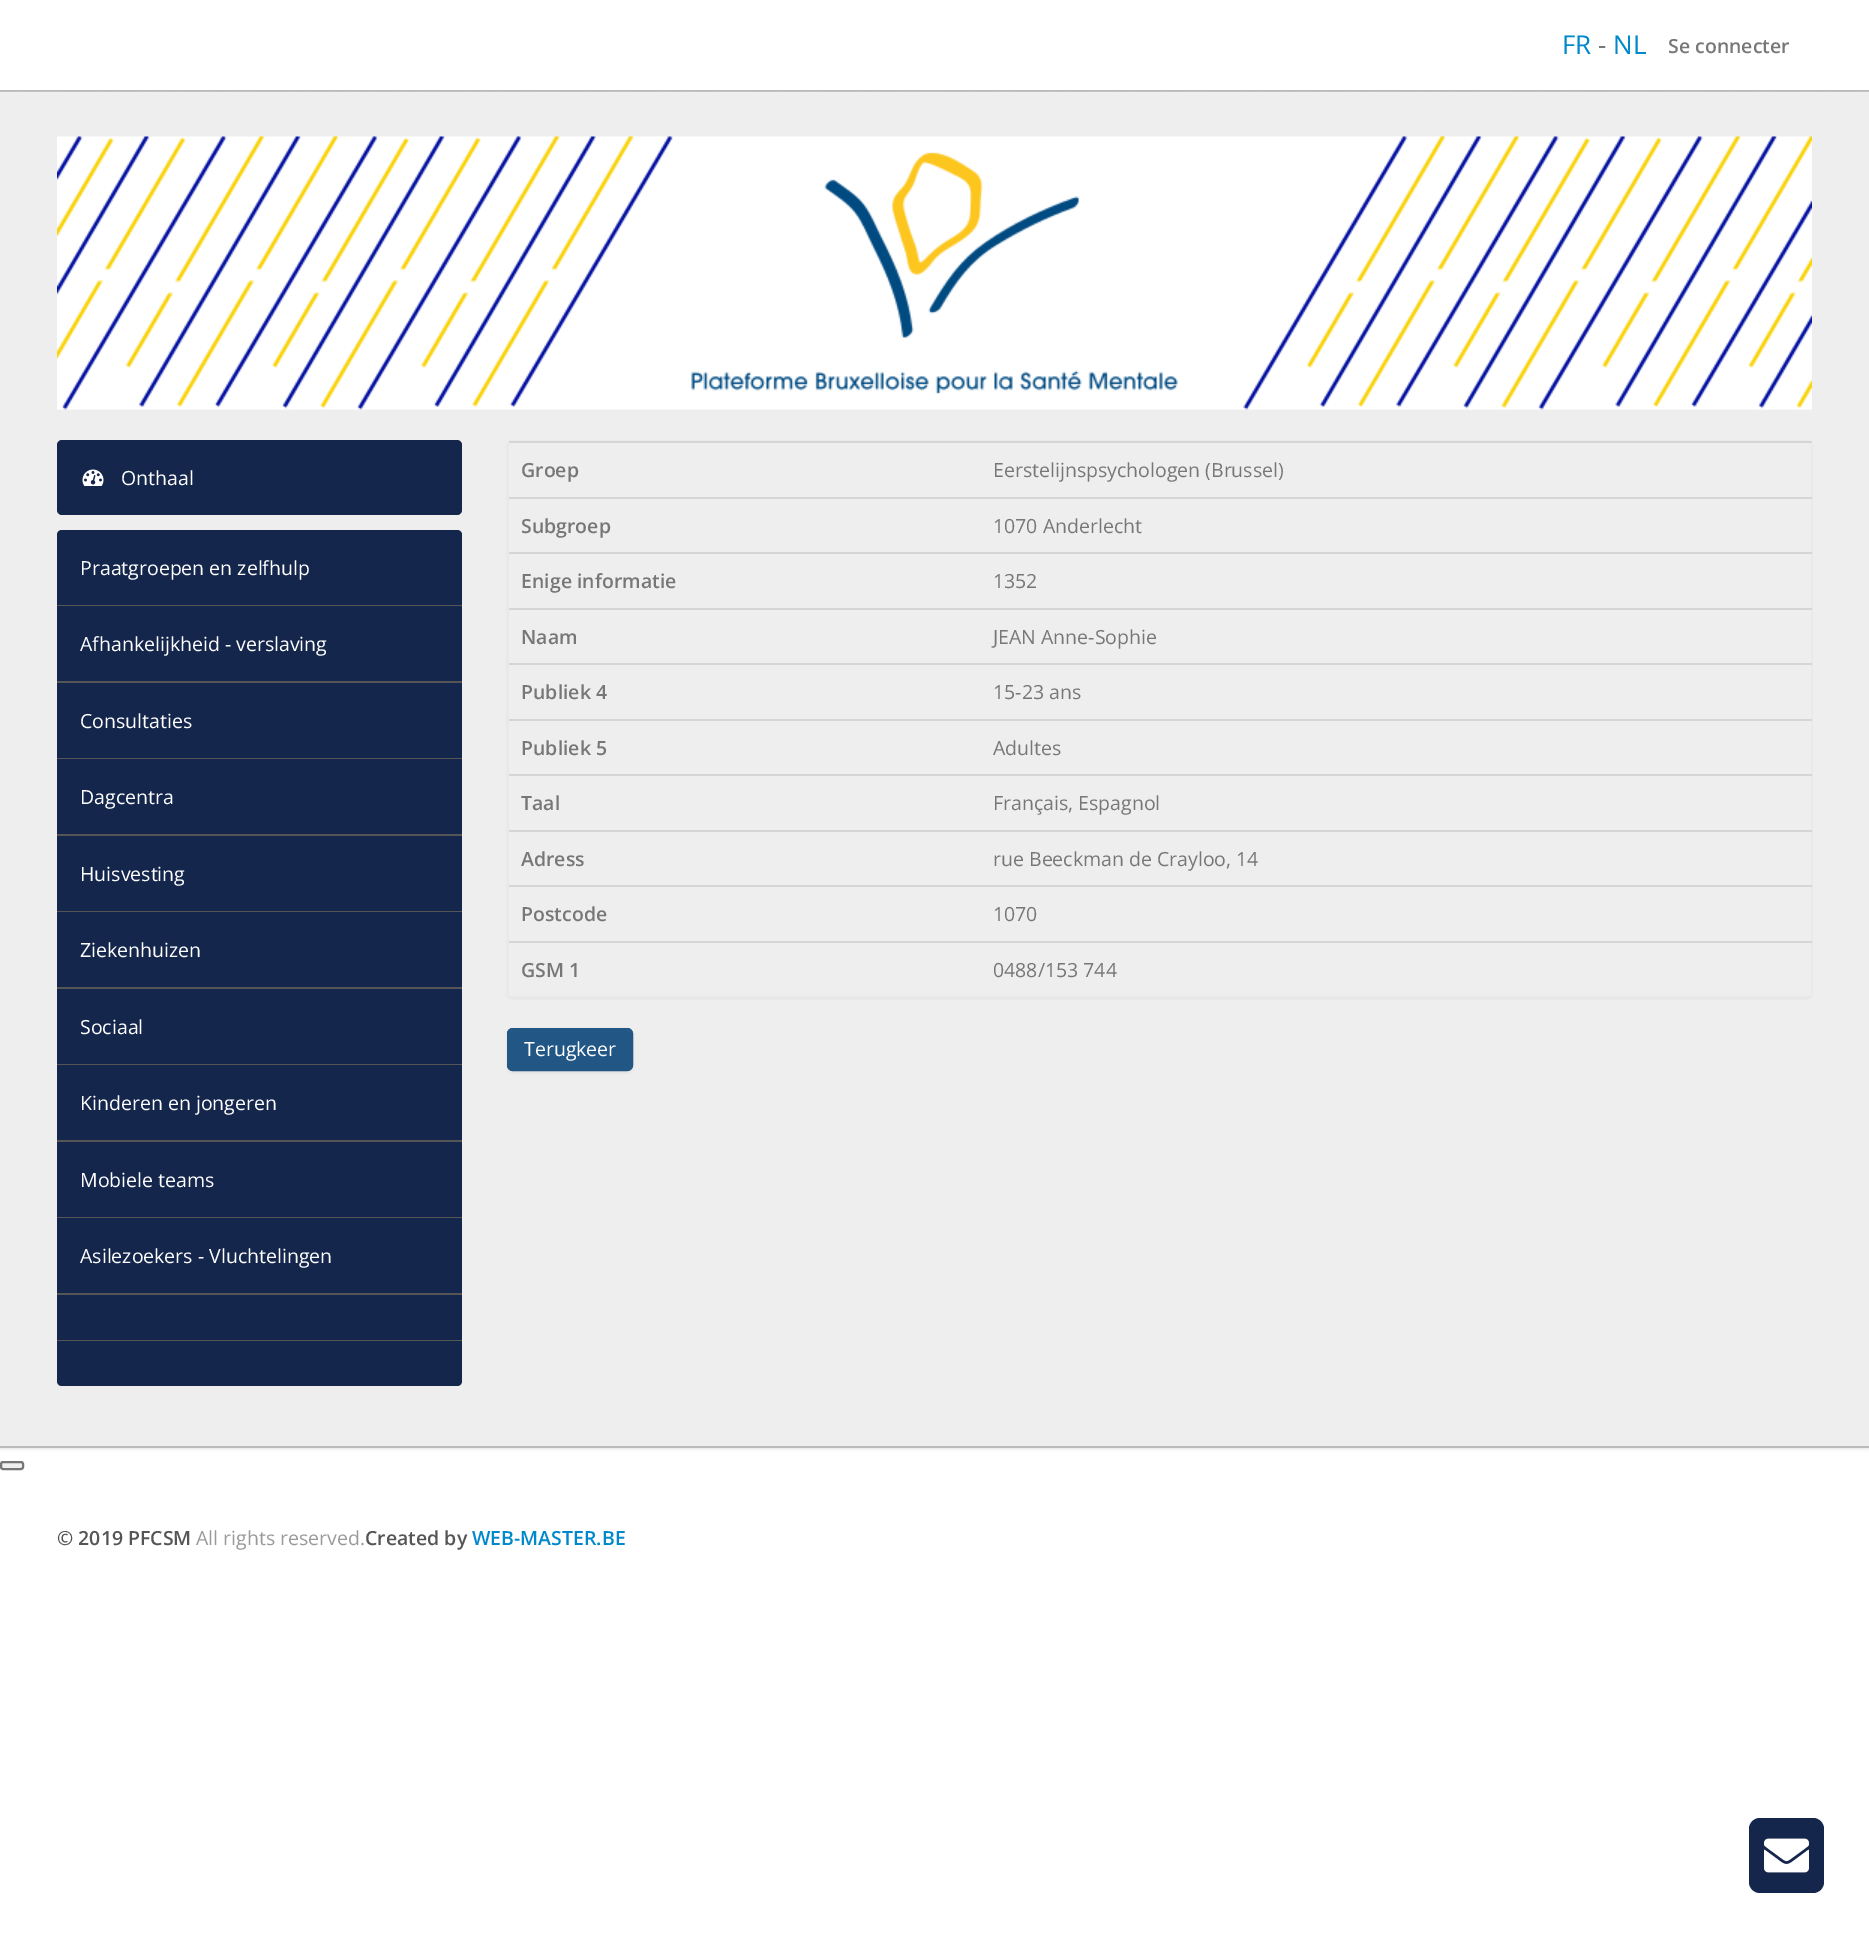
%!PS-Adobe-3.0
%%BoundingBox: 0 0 1869 1937
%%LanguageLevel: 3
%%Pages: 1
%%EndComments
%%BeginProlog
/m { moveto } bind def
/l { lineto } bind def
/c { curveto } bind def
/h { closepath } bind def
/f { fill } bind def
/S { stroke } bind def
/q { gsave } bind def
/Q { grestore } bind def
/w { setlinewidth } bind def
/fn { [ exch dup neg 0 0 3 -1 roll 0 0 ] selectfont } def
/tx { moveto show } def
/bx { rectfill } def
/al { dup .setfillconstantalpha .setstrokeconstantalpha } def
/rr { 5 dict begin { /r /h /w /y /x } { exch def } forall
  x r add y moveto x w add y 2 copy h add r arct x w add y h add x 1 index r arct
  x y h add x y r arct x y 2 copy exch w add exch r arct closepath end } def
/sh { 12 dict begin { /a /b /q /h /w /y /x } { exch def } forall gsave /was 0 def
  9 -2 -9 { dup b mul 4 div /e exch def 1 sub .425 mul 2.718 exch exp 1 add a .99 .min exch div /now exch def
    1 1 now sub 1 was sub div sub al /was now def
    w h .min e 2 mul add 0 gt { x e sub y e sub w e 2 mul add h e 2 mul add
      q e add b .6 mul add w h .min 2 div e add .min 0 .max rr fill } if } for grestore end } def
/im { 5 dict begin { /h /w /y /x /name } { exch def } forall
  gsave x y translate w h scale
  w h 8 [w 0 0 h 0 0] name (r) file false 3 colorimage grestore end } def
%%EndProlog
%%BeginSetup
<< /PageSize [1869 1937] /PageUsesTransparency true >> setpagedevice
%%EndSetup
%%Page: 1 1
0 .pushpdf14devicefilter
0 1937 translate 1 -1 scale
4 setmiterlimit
1 setgray
0 0 1869 1937 bx
0.733 setgray
0 90 1869 2 bx
/OpenSans-Regular 26 fn
0 0.533 0.8 setrgbcolor
(FR) 1562 54 tx
0.467 setgray
(-) 1598 54 tx
0 0.533 0.8 setrgbcolor
(NL) 1613 54 tx
/OpenSans-SemiBold 19.5 fn
0.467 setgray
(Se connecter) 1668 53 tx
0 setgray
0 93 1869 1356 0 1.5 0.1 sh
0.933 setgray
0 92 1869 1354 bx
(image0.raw) 0 91 1869 1 im
0.733 setgray
0 1446 1869 2 bx
(image1.raw) 57 136 1755 274 im
0.082 0.149 0.298 setrgbcolor
57 440 405 75 5 rr f
(image2.raw) 82 469 22 17 im
/OpenSans-Regular 19.5 fn
1 setgray
(Onthaal) 121 485 tx
0.082 0.149 0.298 setrgbcolor
62 530 m 457 530 l 460 530 462 532 462 535 c 462 605 l 57 605 l 57 535 l 57 532 59 530 62 530 c h f
1 setgray
(Praatgroepen en zelfhulp) 80 575 tx
0.333 setgray
57 605 405 1 bx
0.082 0.149 0.298 setrgbcolor
57 606 405 75 bx
1 setgray
(Afhankelijkheid - verslaving) 80 651 tx
0.333 setgray
57 681 405 2 bx
0.082 0.149 0.298 setrgbcolor
57 683 405 75 bx
1 setgray
(Consultaties) 80 728 tx
0.333 setgray
57 758 405 1 bx
0.082 0.149 0.298 setrgbcolor
57 759 405 75 bx
1 setgray
(Dagcentra) 80 804 tx
0.333 setgray
57 834 405 2 bx
0.082 0.149 0.298 setrgbcolor
57 836 405 75 bx
1 setgray
(Huisvesting) 80 881 tx
0.333 setgray
57 911 405 1 bx
0.082 0.149 0.298 setrgbcolor
57 912 405 75 bx
1 setgray
(Ziekenhuizen) 80 957 tx
0.333 setgray
57 987 405 2 bx
0.082 0.149 0.298 setrgbcolor
57 989 405 75 bx
1 setgray
(Sociaal) 80 1034 tx
0.333 setgray
57 1064 405 1 bx
0.082 0.149 0.298 setrgbcolor
57 1065 405 75 bx
1 setgray
(Kinderen en jongeren) 80 1110 tx
0.333 setgray
57 1140 405 2 bx
0.082 0.149 0.298 setrgbcolor
57 1142 405 75 bx
1 setgray
(Mobiele teams) 80 1187 tx
0.333 setgray
57 1217 405 1 bx
0.082 0.149 0.298 setrgbcolor
57 1218 405 75 bx
1 setgray
(Asilezoekers - Vluchtelingen) 80 1263 tx
0.333 setgray
57 1293 405 2 bx
0.082 0.149 0.298 setrgbcolor
57 1295 405 45 bx
0.333 setgray
57 1340 405 1 bx
0.082 0.149 0.298 setrgbcolor
57 1341 m 462 1341 l 462 1381 l 462 1384 460 1386 457 1386 c 62 1386 l 59 1386 57 1384 57 1381 c h f
0 setgray
507 441 1305 558 6 1 0.05 sh
0.914 setgray
2 w
508 441 1303 556 5 rr S
0.933 setgray
509 443 1302 553 bx
/OpenSans-SemiBold 19.5 fn
0.467 setgray
(Groep) 521 477 tx
0.835 setgray
509 441 1303 2 bx
/OpenSans-Regular 19.5 fn
0.467 setgray
(Eerstelijnspsychologen \(Brussel\)) 993 477 tx
/OpenSans-SemiBold 19.5 fn
(Subgroep) 521 533 tx
0.835 setgray
509 497 1303 2 bx
/OpenSans-Regular 19.5 fn
0.467 setgray
(1070 Anderlecht) 993 533 tx
/OpenSans-SemiBold 19.5 fn
(Enige informatie) 521 588 tx
0.835 setgray
509 552 1303 2 bx
/OpenSans-Regular 19.5 fn
0.467 setgray
(1352) 993 588 tx
/OpenSans-SemiBold 19.5 fn
(Naam) 521 644 tx
0.835 setgray
509 608 1303 2 bx
/OpenSans-Regular 19.5 fn
0.467 setgray
(JEAN Anne-Sophie) 993 644 tx
/OpenSans-SemiBold 19.5 fn
(Publiek 4) 521 699 tx
0.835 setgray
509 663 1303 2 bx
/OpenSans-Regular 19.5 fn
0.467 setgray
(15-23 ans) 993 699 tx
/OpenSans-SemiBold 19.5 fn
(Publiek 5) 521 755 tx
0.835 setgray
509 719 1303 2 bx
/OpenSans-Regular 19.5 fn
0.467 setgray
(Adultes) 993 755 tx
/OpenSans-SemiBold 19.5 fn
(Taal) 521 810 tx
0.835 setgray
509 774 1303 2 bx
/OpenSans-Regular 19.5 fn
0.467 setgray
(Français, Espagnol) 993 810 tx
/OpenSans-SemiBold 19.5 fn
(Adress) 521 866 tx
0.835 setgray
509 830 1303 2 bx
/OpenSans-Regular 19.5 fn
0.467 setgray
(rue Beeckman de Crayloo, 14) 993 866 tx
/OpenSans-SemiBold 19.5 fn
(Postcode) 521 921 tx
0.835 setgray
509 885 1303 2 bx
/OpenSans-Regular 19.5 fn
0.467 setgray
(1070) 993 921 tx
/OpenSans-SemiBold 19.5 fn
(GSM 1) 521 977 tx
0.835 setgray
509 941 1303 2 bx
/OpenSans-Regular 19.5 fn
0.467 setgray
(0488/153 744) 993 977 tx
0 setgray
507 1029 126 44 6 1.5 0.05 sh
0.133 0.337 0.522 setrgbcolor
507 1028 126 43 6 rr f
0.306 0.471 0.616 setrgbcolor
513 1030 m 627 1030 l 629 1030 632 1033 632 1035 c 632 1034 l 632 1031 630 1029 627 1029 c 514 1029 l 512 1029 510 1030 509 1032 c 510 1031 512 1030 513 1030 c h f
0.133 0.337 0.522 setrgbcolor
508 1029 124 41 5 rr S
1 setgray
(Terugkeer) 524 1056 tx
0.937 setgray
1 1462 22 7 2 rr q f Q
0.463 setgray
S
0.082 0.149 0.298 setrgbcolor
1749 1818 75 75 11 rr f
(image3.raw) 1764 1838 45 35 im
/OpenSans-SemiBold 19.5 fn
0.333 setgray
(© 2019 PFCSM) 57 1545 tx
/OpenSans-Regular 19.5 fn
0.6 setgray
(All rights reserved.) 196 1545 tx
/OpenSans-SemiBold 19.5 fn
0.333 setgray
(Created by) 365 1545 tx
0 0.533 0.8 setrgbcolor
(WEB-MASTER.BE) 472 1545 tx
.poppdf14devicefilter showpage
%%EOF
